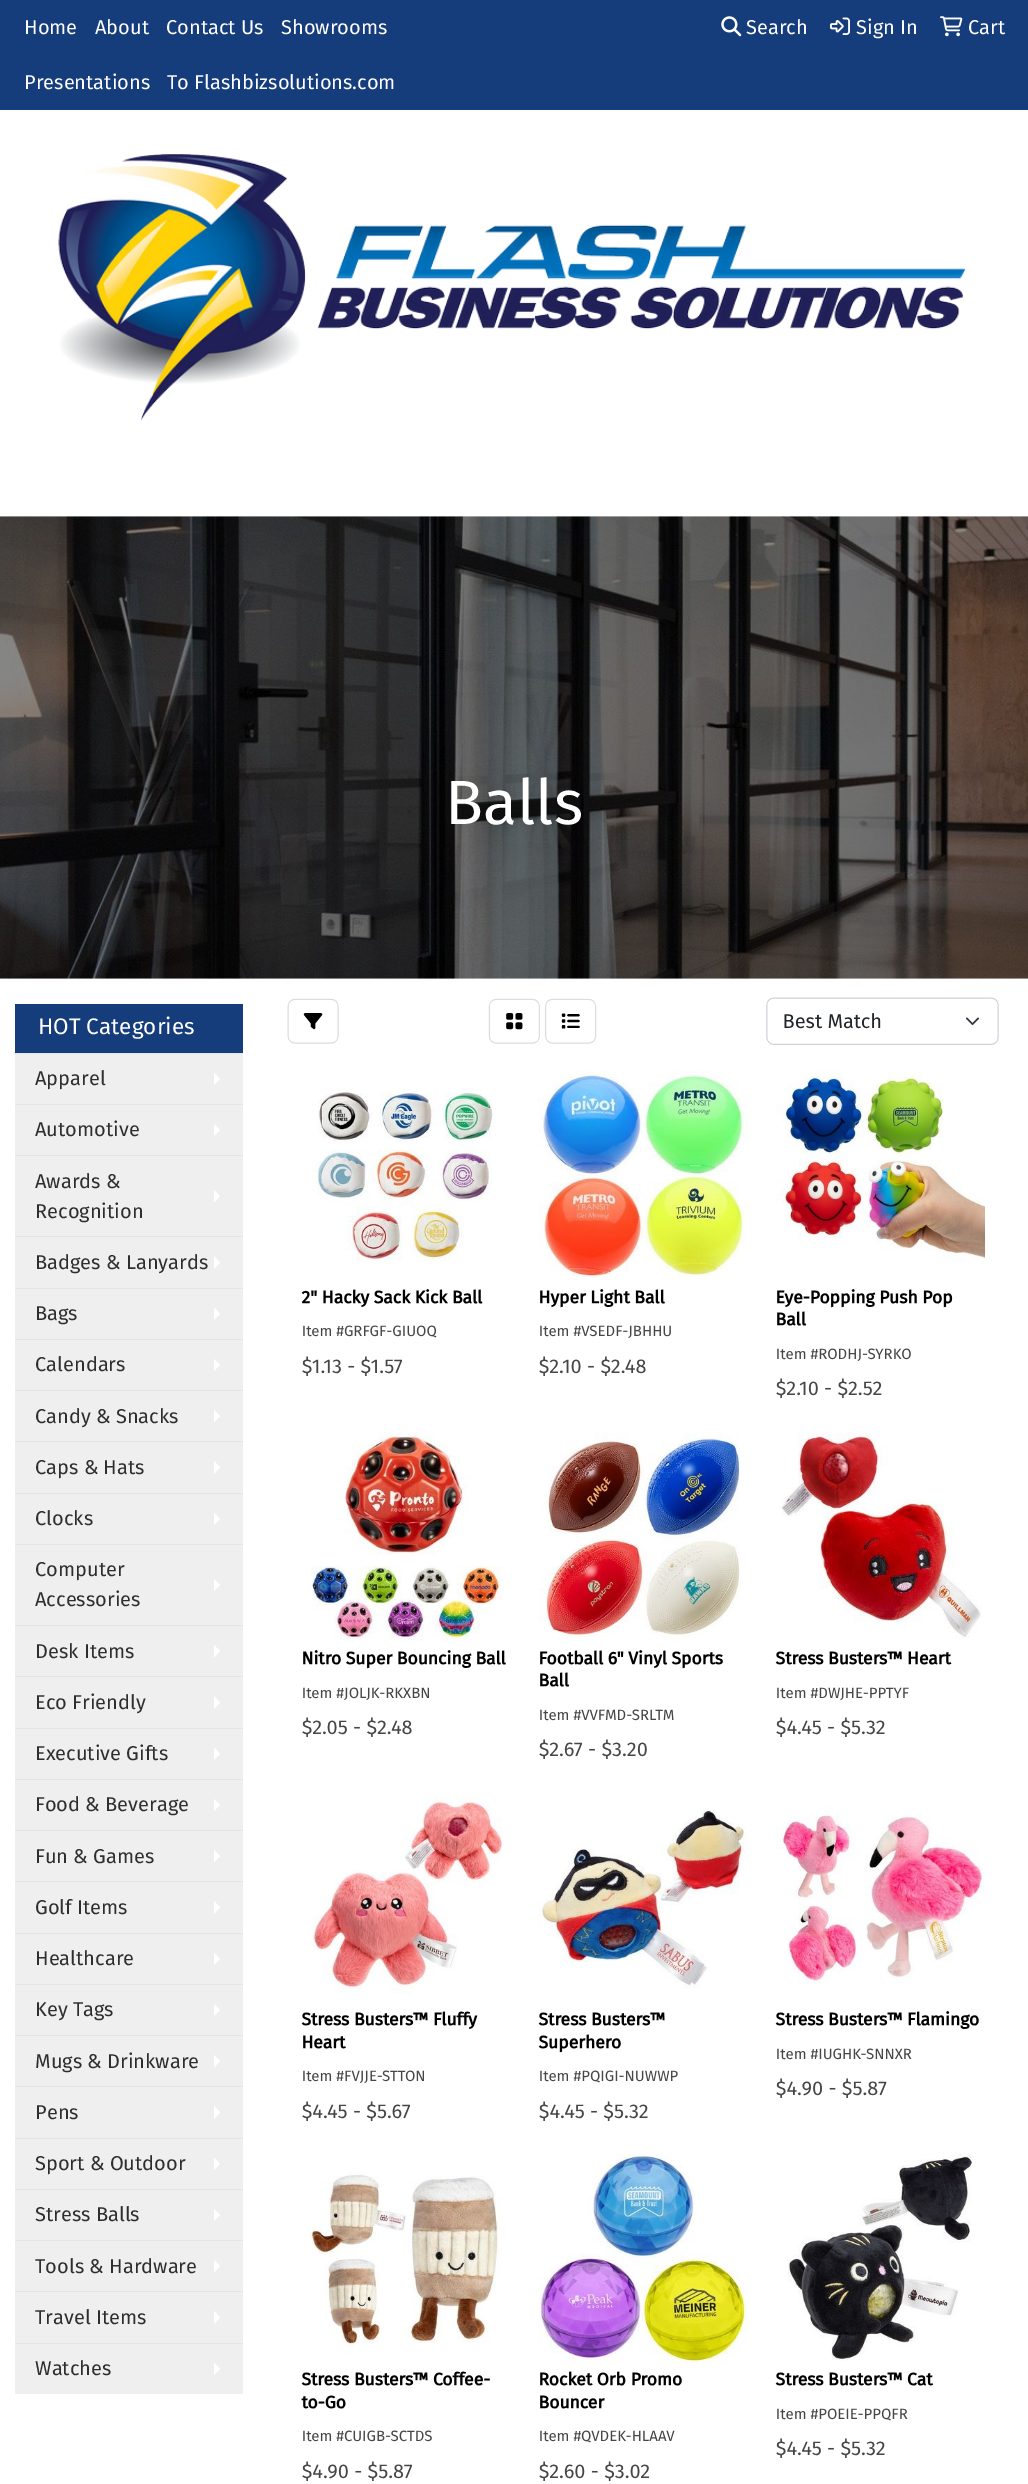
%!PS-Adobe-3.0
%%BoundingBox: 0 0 1028 2484
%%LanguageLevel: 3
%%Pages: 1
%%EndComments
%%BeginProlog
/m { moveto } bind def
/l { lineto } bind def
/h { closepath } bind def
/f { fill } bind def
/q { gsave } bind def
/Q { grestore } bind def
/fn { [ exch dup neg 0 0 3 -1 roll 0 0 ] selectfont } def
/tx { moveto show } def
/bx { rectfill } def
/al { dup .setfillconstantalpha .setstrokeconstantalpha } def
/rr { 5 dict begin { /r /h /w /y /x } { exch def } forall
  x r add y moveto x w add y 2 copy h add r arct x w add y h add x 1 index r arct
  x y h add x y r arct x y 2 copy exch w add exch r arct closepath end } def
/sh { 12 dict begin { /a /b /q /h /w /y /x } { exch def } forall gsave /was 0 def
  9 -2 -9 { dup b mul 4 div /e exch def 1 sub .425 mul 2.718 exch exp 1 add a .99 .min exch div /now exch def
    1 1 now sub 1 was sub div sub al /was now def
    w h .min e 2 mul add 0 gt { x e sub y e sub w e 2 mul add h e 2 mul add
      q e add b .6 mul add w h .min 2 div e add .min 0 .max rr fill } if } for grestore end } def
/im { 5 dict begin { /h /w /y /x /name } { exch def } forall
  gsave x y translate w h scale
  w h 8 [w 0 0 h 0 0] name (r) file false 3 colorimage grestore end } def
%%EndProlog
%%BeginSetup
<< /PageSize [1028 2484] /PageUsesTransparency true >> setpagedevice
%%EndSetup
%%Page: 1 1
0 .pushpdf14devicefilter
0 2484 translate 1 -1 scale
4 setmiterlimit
1 setgray
0 0 1028 2484 bx
0.082 0.235 0.482 setrgbcolor
0 0 1028 110 bx
/FiraSans-Regular 20 fn
1 setgray
(Home) 24 34 tx
(About) 95 34 tx
(Contact Us) 166 34 tx
(Showrooms) 281 34 tx
(Presentations) 24 89 tx
(To Flashbizsolutions.com) 167 89 tx
(image0.raw) 721 16 21 21 im
(Search) 746 34 tx
(image1.raw) 830 17 20 18 im
(Sign In) 856 34 tx
(image2.raw) 940 16 23 21 im
(Cart) 968 34 tx
(image3.raw) 58 154 908 267 im
q
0 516 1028 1 rectclip
0 setgray
0 464 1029 55 0 2.5 0.07 sh
Q
(image4.raw) 0 516 1028 463 im
/FiraSans-Regular 62.5 fn
(Balls) 445 824 tx
0.082 0.235 0.482 setrgbcolor
15 1004 228 49 bx
/FiraSans-Regular 22.5 fn
1 setgray
(HOT Categories) 38 1034 tx
0.937 setgray
15 1054 228 50 bx
0.898 setgray
15 1053 228 1 bx
/FiraSans-Regular 20 fn
0.18 setgray
(Apparel) 35 1085 tx
1 setgray
214 1085 m 214 1072.5 l 220 1079 l h f
0.937 setgray
15 1105 228 50 bx
0.898 setgray
15 1104 228 1 bx
0.18 setgray
(Automotive) 35 1136 tx
1 setgray
214 1136 m 214 1124 l 220 1130 l h f
0.937 setgray
15 1156 228 80 bx
0.898 setgray
15 1155 228 1 bx
0.18 setgray
(Awards &) 35 1188 tx
1 setgray
214 1202.5 m 214 1190 l 220 1196 l h f
0.18 setgray
(Recognition) 35 1218 tx
0.937 setgray
15 1237 228 51 bx
0.898 setgray
15 1236 228 1 bx
0.18 setgray
(Badges & Lanyards) 35 1269 tx
1 setgray
214 1269 m 214 1256 l 220 1262.5 l h f
0.937 setgray
15 1289 228 50 bx
0.898 setgray
15 1288 228 1 bx
0.18 setgray
(Bags) 35 1320 tx
1 setgray
214 1320 m 214 1307.5 l 220 1314 l h f
0.937 setgray
15 1340 228 50 bx
0.898 setgray
15 1339 228 1 bx
0.18 setgray
(Calendars) 35 1371 tx
1 setgray
214 1371 m 214 1359 l 220 1365 l h f
0.937 setgray
15 1391 228 50 bx
0.898 setgray
15 1390 228 1 bx
0.18 setgray
(Candy & Snacks) 35 1423 tx
1 setgray
214 1422.5 m 214 1410 l 220 1416 l h f
0.937 setgray
15 1442 228 51 bx
0.898 setgray
15 1441 228 1 bx
0.18 setgray
(Caps & Hats) 35 1474 tx
1 setgray
214 1474 m 214 1461 l 220 1467.5 l h f
0.937 setgray
15 1494 228 50 bx
0.898 setgray
15 1493 228 1 bx
0.18 setgray
(Clocks) 35 1525 tx
1 setgray
214 1525 m 214 1512.5 l 220 1519 l h f
0.937 setgray
15 1545 228 80 bx
0.898 setgray
15 1544 228 1 bx
0.18 setgray
(Computer) 35 1576 tx
1 setgray
214 1591 m 214 1579 l 220 1585 l h f
0.18 setgray
(Accessories) 35 1606 tx
0.937 setgray
15 1626 228 50 bx
0.898 setgray
15 1625 228 1 bx
0.18 setgray
(Desk Items) 35 1658 tx
1 setgray
214 1657.5 m 214 1645 l 220 1651 l h f
0.937 setgray
15 1677 228 51 bx
0.898 setgray
15 1676 228 1 bx
0.18 setgray
(Eco Friendly) 35 1709 tx
1 setgray
214 1709 m 214 1696 l 220 1702.5 l h f
0.937 setgray
15 1729 228 50 bx
0.898 setgray
15 1728 228 1 bx
0.18 setgray
(Executive Gifts) 35 1760 tx
1 setgray
214 1760 m 214 1747.5 l 220 1754 l h f
0.937 setgray
15 1780 228 50 bx
0.898 setgray
15 1779 228 1 bx
0.18 setgray
(Food & Beverage) 35 1811 tx
1 setgray
214 1811 m 214 1799 l 220 1805 l h f
0.937 setgray
15 1831 228 50 bx
0.898 setgray
15 1830 228 1 bx
0.18 setgray
(Fun & Games) 35 1863 tx
1 setgray
214 1862.5 m 214 1850 l 220 1856 l h f
0.937 setgray
15 1882 228 51 bx
0.898 setgray
15 1881 228 1 bx
0.18 setgray
(Golf Items) 35 1914 tx
1 setgray
214 1914 m 214 1901 l 220 1907.5 l h f
0.937 setgray
15 1934 228 50 bx
0.898 setgray
15 1933 228 1 bx
0.18 setgray
(Healthcare) 35 1965 tx
1 setgray
214 1965 m 214 1952.5 l 220 1959 l h f
0.937 setgray
15 1985 228 50 bx
0.898 setgray
15 1984 228 1 bx
0.18 setgray
(Key Tags) 35 2016 tx
1 setgray
214 2016 m 214 2004 l 220 2010 l h f
0.937 setgray
15 2036 228 50 bx
0.898 setgray
15 2035 228 1 bx
0.18 setgray
(Mugs & Drinkware) 35 2068 tx
1 setgray
214 2067.5 m 214 2055 l 220 2061 l h f
0.937 setgray
15 2087 228 51 bx
0.898 setgray
15 2086 228 1 bx
0.18 setgray
(Pens) 35 2119 tx
1 setgray
214 2119 m 214 2106 l 220 2112.5 l h f
0.937 setgray
15 2139 228 50 bx
0.898 setgray
15 2138 228 1 bx
0.18 setgray
(Sport & Outdoor) 35 2170 tx
1 setgray
214 2170 m 214 2157.5 l 220 2164 l h f
0.937 setgray
15 2190 228 50 bx
0.898 setgray
15 2189 228 1 bx
0.18 setgray
(Stress Balls) 35 2221 tx
1 setgray
214 2221 m 214 2209 l 220 2215 l h f
0.937 setgray
15 2241 228 50 bx
0.898 setgray
15 2240 228 1 bx
0.18 setgray
(Tools & Hardware) 35 2273 tx
1 setgray
214 2272.5 m 214 2260 l 220 2266 l h f
0.937 setgray
15 2292 228 51 bx
0.898 setgray
15 2291 228 1 bx
0.18 setgray
(Travel Items) 35 2324 tx
1 setgray
214 2324 m 214 2311 l 220 2317.5 l h f
0.937 setgray
15 2344 228 50 bx
0.898 setgray
15 2343 228 1 bx
0.18 setgray
(Watches) 35 2375 tx
1 setgray
214 2375 m 214 2362.5 l 220 2369 l h f
(image5.raw) 287 997 712 1484 im
.poppdf14devicefilter showpage
%%EOF
